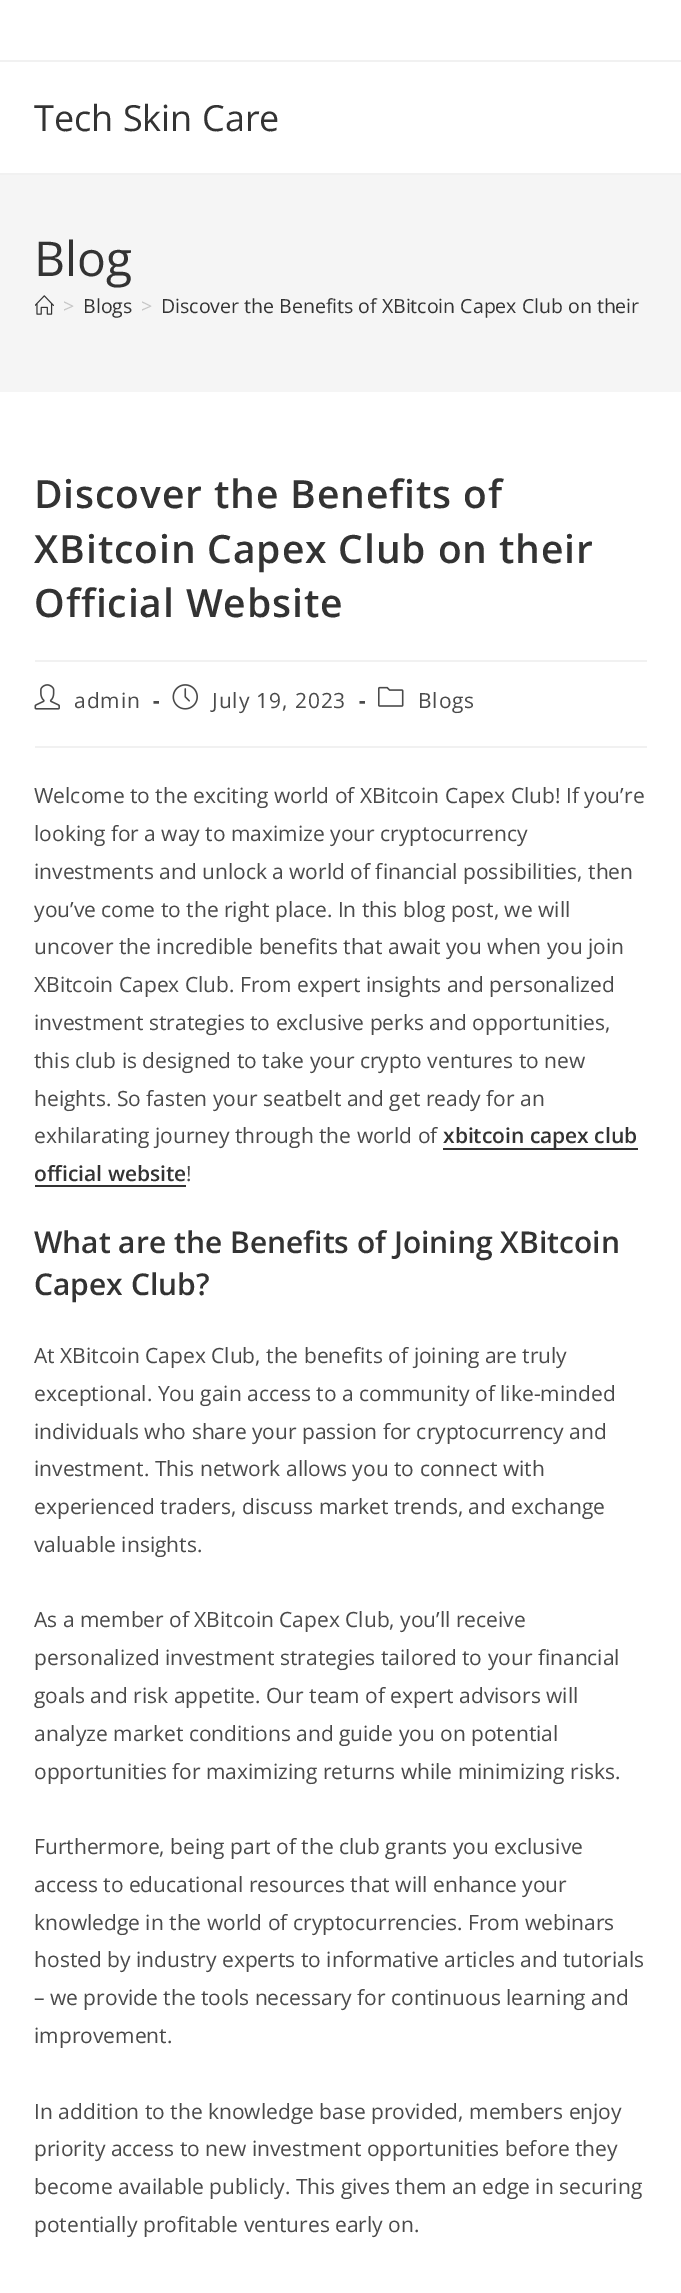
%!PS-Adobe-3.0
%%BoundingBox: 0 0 681 2293
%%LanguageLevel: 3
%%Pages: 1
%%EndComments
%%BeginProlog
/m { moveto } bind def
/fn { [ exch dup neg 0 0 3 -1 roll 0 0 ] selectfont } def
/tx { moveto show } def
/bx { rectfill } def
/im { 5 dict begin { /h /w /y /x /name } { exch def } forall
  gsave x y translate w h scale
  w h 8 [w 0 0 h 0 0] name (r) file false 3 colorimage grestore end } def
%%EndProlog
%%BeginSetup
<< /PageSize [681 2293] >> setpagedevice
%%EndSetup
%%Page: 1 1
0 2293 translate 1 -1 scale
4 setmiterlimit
1 setgray
0 0 681 2293 bx
0.945 setgray
0 60 681 2 bx
0 173 681 2 bx
/OpenSans-Regular 36 fn
0.2 setgray
(Tech Skin Care) 34 131 tx
0.961 setgray
0 175 681 217 bx
/OpenSans-Regular 48 fn
0.2 setgray
(Blog) 34 276 tx
(image0.raw) 35 295 19 20 im
/OpenSans-Regular 19.5 fn
0.776 setgray
(>) 63 313 tx
0.2 setgray
(Blogs) 83 313 tx
0.776 setgray
(>) 141 313 tx
0.2 setgray
(Discover the Benefits of XBitcoin Capex Club on their) 161 313 tx
0.945 setgray
35 660 612 2 bx
/OpenSans-SemiBold 39 fn
0.2 setgray
34 508 m 0.9 0 (Discover the Benefits of) ashow
34 563 m 0.9 0 (XBitcoin Capex Club on their) ashow
34 617 m 0.9 0 (Official Website) ashow
0.945 setgray
35 746 612 2 bx
(image1.raw) 34 684 26 26 im
/OpenSans-Regular 21 fn
0.29 setgray
74 708 m 0.9 0 (admin) ashow
/OpenSans-Bold 21 fn
153 708 m 0.9 0 (-) ashow
(image2.raw) 172 684 26 26 im
/OpenSans-Regular 21 fn
212 708 m 0.9 0 (July 19, 2023) ashow
/OpenSans-Bold 21 fn
359 708 m 0.9 0 (-) ashow
(image3.raw) 378 686 26 21 im
/OpenSans-Regular 21 fn
418 708 m 0.9 0 (Blogs) ashow
(Welcome to the exciting world of XBitcoin Capex Club! If you’re) 34 803 tx
(looking for a way to maximize your cryptocurrency) 34 841 tx
(investments and unlock a world of financial possibilities, then) 34 879 tx
(you’ve come to the right place. In this blog post, we will) 34 917 tx
(uncover the incredible benefits that await you when you join) 34 954 tx
(XBitcoin Capex Club. From expert insights and personalized) 34 992 tx
(investment strategies to exclusive perks and opportunities,) 34 1030 tx
(this club is designed to take your crypto ventures to new) 34 1068 tx
(heights. So fasten your seatbelt and get ready for an) 34 1106 tx
(exhilarating journey through the world of) 34 1143 tx
0.2 setgray
443 1148 195 2 bx
/OpenSans-SemiBold 21 fn
(xbitcoin capex club) 443 1143 tx
(official website) 34 1181 tx
35 1185 151 2 bx
/OpenSans-Regular 21 fn
0.29 setgray
(!) 186 1181 tx
/OpenSans-SemiBold 30 fn
0.2 setgray
(What are the Benefits of Joining XBitcoin) 34 1253 tx
(Capex Club?) 34 1295 tx
/OpenSans-Regular 21 fn
0.29 setgray
(At XBitcoin Capex Club, the benefits of joining are truly) 34 1363 tx
(exceptional. You gain access to a community of like-minded) 34 1401 tx
(individuals who share your passion for cryptocurrency and) 34 1439 tx
(investment. This network allows you to connect with) 34 1476 tx
(experienced traders, discuss market trends, and exchange) 34 1514 tx
(valuable insights.) 34 1552 tx
(As a member of XBitcoin Capex Club, you’ll receive) 34 1627 tx
(personalized investment strategies tailored to your financial) 34 1665 tx
(goals and risk appetite. Our team of expert advisors will) 34 1703 tx
(analyze market conditions and guide you on potential) 34 1741 tx
(opportunities for maximizing returns while minimizing risks.) 34 1779 tx
(Furthermore, being part of the club grants you exclusive) 34 1854 tx
(access to educational resources that will enhance your) 34 1892 tx
(knowledge in the world of cryptocurrencies. From webinars) 34 1930 tx
(hosted by industry experts to informative articles and tutorials) 34 1967 tx
(– we provide the tools necessary for continuous learning and) 34 2005 tx
(improvement.) 34 2043 tx
(In addition to the knowledge base provided, members enjoy) 34 2119 tx
(priority access to new investment opportunities before they) 34 2156 tx
(become available publicly. This gives them an edge in securing) 34 2194 tx
(potentially profitable ventures early on.) 34 2232 tx
showpage
%%EOF
